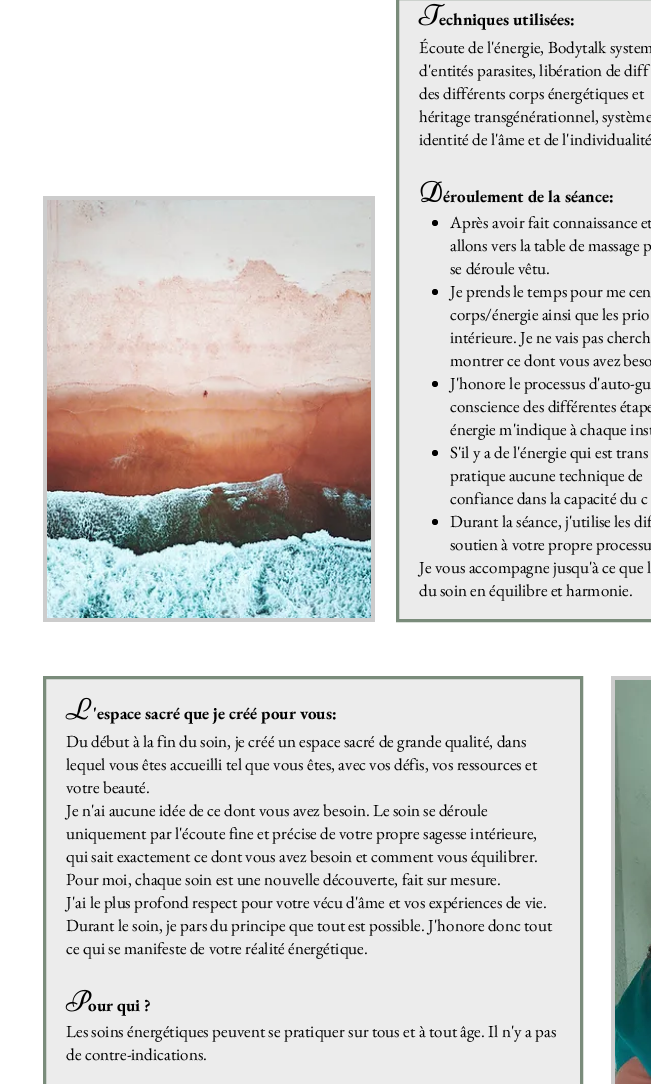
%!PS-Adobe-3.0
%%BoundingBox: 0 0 651 1084
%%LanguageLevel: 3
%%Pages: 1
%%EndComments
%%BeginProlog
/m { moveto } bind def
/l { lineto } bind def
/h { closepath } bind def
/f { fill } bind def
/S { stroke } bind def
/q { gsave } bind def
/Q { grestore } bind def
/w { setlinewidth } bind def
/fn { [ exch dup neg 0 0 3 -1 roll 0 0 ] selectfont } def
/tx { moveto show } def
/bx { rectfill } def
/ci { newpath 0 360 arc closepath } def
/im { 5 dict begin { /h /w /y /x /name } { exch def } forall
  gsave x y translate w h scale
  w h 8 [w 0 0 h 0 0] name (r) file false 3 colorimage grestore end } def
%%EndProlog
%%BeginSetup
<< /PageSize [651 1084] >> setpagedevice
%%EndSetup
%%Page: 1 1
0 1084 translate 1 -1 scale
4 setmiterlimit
1 setgray
0 0 651 1084 bx
0.8 setgray
43 196 332 426 bx
(image0.raw) 47 200 324 418 im
0.922 setgray
397.5 -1.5 m 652.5 -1.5 l 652.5 620.5 l 397.5 620.5 l h q f Q
0.478 0.549 0.482 setrgbcolor
3 w
S
(image1.raw) 418 3 27 23 im
/EBGaramond-Bold 17 fn
0 setgray
(echniques utilisées:) 439 25 tx
/EBGaramond-Regular 17 fn
(Écoute de l'énergie, Bodytalk system) 419 53 tx
(d'entités parasites, libération de diff) 419 76 tx
(des différents corps énergétiques et) 419 99 tx
(héritage transgénérationnel, système) 419 122 tx
(identité de l'âme et de l'individualité) 419 145 tx
(image2.raw) 420 180 22 23 im
/EBGaramond-Bold 17 fn
(éroulement de la séance:) 443 202 tx
435 223 3 ci f
/EBGaramond-Regular 17 fn
(Après avoir fait connaissance et) 450 228 tx
(allons vers la table de massage p) 450 251 tx
(se déroule vêtu.) 450 274 tx
435 292 3 ci f
(Je prends le temps pour me cen) 450 297 tx
(corps/énergie ainsi que les prio) 450 320 tx
(intérieure. Je ne vais pas cherch) 450 343 tx
(montrer ce dont vous avez beso) 450 366 tx
435 384 3 ci f
(J'honore le processus d'auto-gu) 450 389 tx
(conscience des différentes étape) 450 412 tx
(énergie m'indique à chaque inst) 450 435 tx
435 453 3 ci f
(S'il y a de l'énergie qui est trans) 450 458 tx
(pratique aucune technique de) 450 481 tx
(confiance dans la capacité du c) 450 504 tx
435 522 3 ci f
(Durant la séance, j'utilise les dif) 450 527 tx
(soutien à votre propre processu) 450 550 tx
(Je vous accompagne jusqu'à ce que l) 419 573 tx
(du soin en équilibre et harmonie.) 419 596 tx
0.925 setgray
44.5 677.5 m 581.5 677.5 l 581.5 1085.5 l 44.5 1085.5 l h q f Q
0.478 0.549 0.482 setrgbcolor
S
(image3.raw) 65 697 27 23 im
/EBGaramond-Bold 17 fn
0 setgray
('espace sacré que je créé pour vous:) 93 719 tx
/EBGaramond-Regular 17 fn
(Du début à la fin du soin, je créé un espace sacré de grande qualité, dans) 66 747 tx
(lequel vous êtes accueilli tel que vous êtes, avec vos défis, vos ressources et) 66 770 tx
(votre beauté.) 66 793 tx
(Je n'ai aucune idée de ce dont vous avez besoin. Le soin se déroule) 66 816 tx
(uniquement par l'écoute fine et précise de votre propre sagesse intérieure,) 66 839 tx
(qui sait exactement ce dont vous avez besoin et comment vous équilibrer.) 66 862 tx
(Pour moi, chaque soin est une nouvelle découverte, fait sur mesure.) 66 885 tx
(J'ai le plus profond respect pour votre vécu d'âme et vos expériences de vie.) 66 908 tx
(Durant le soin, je pars du principe que tout est possible. J'honore donc tout) 66 931 tx
(ce qui se manifeste de votre réalité énergétique.) 66 954 tx
(image4.raw) 65 989 27 23 im
/EBGaramond-Bold 17 fn
(our qui ?) 88 1011 tx
/EBGaramond-Regular 17 fn
(Les soins énergétiques peuvent se pratiquer sur tous et à tout âge. Il n'y a pas) 66 1037 tx
(de contre-indications.) 66 1060 tx
0.8 setgray
611 676 40 408 bx
(image5.raw) 615 680 36 404 im
showpage
%%EOF
